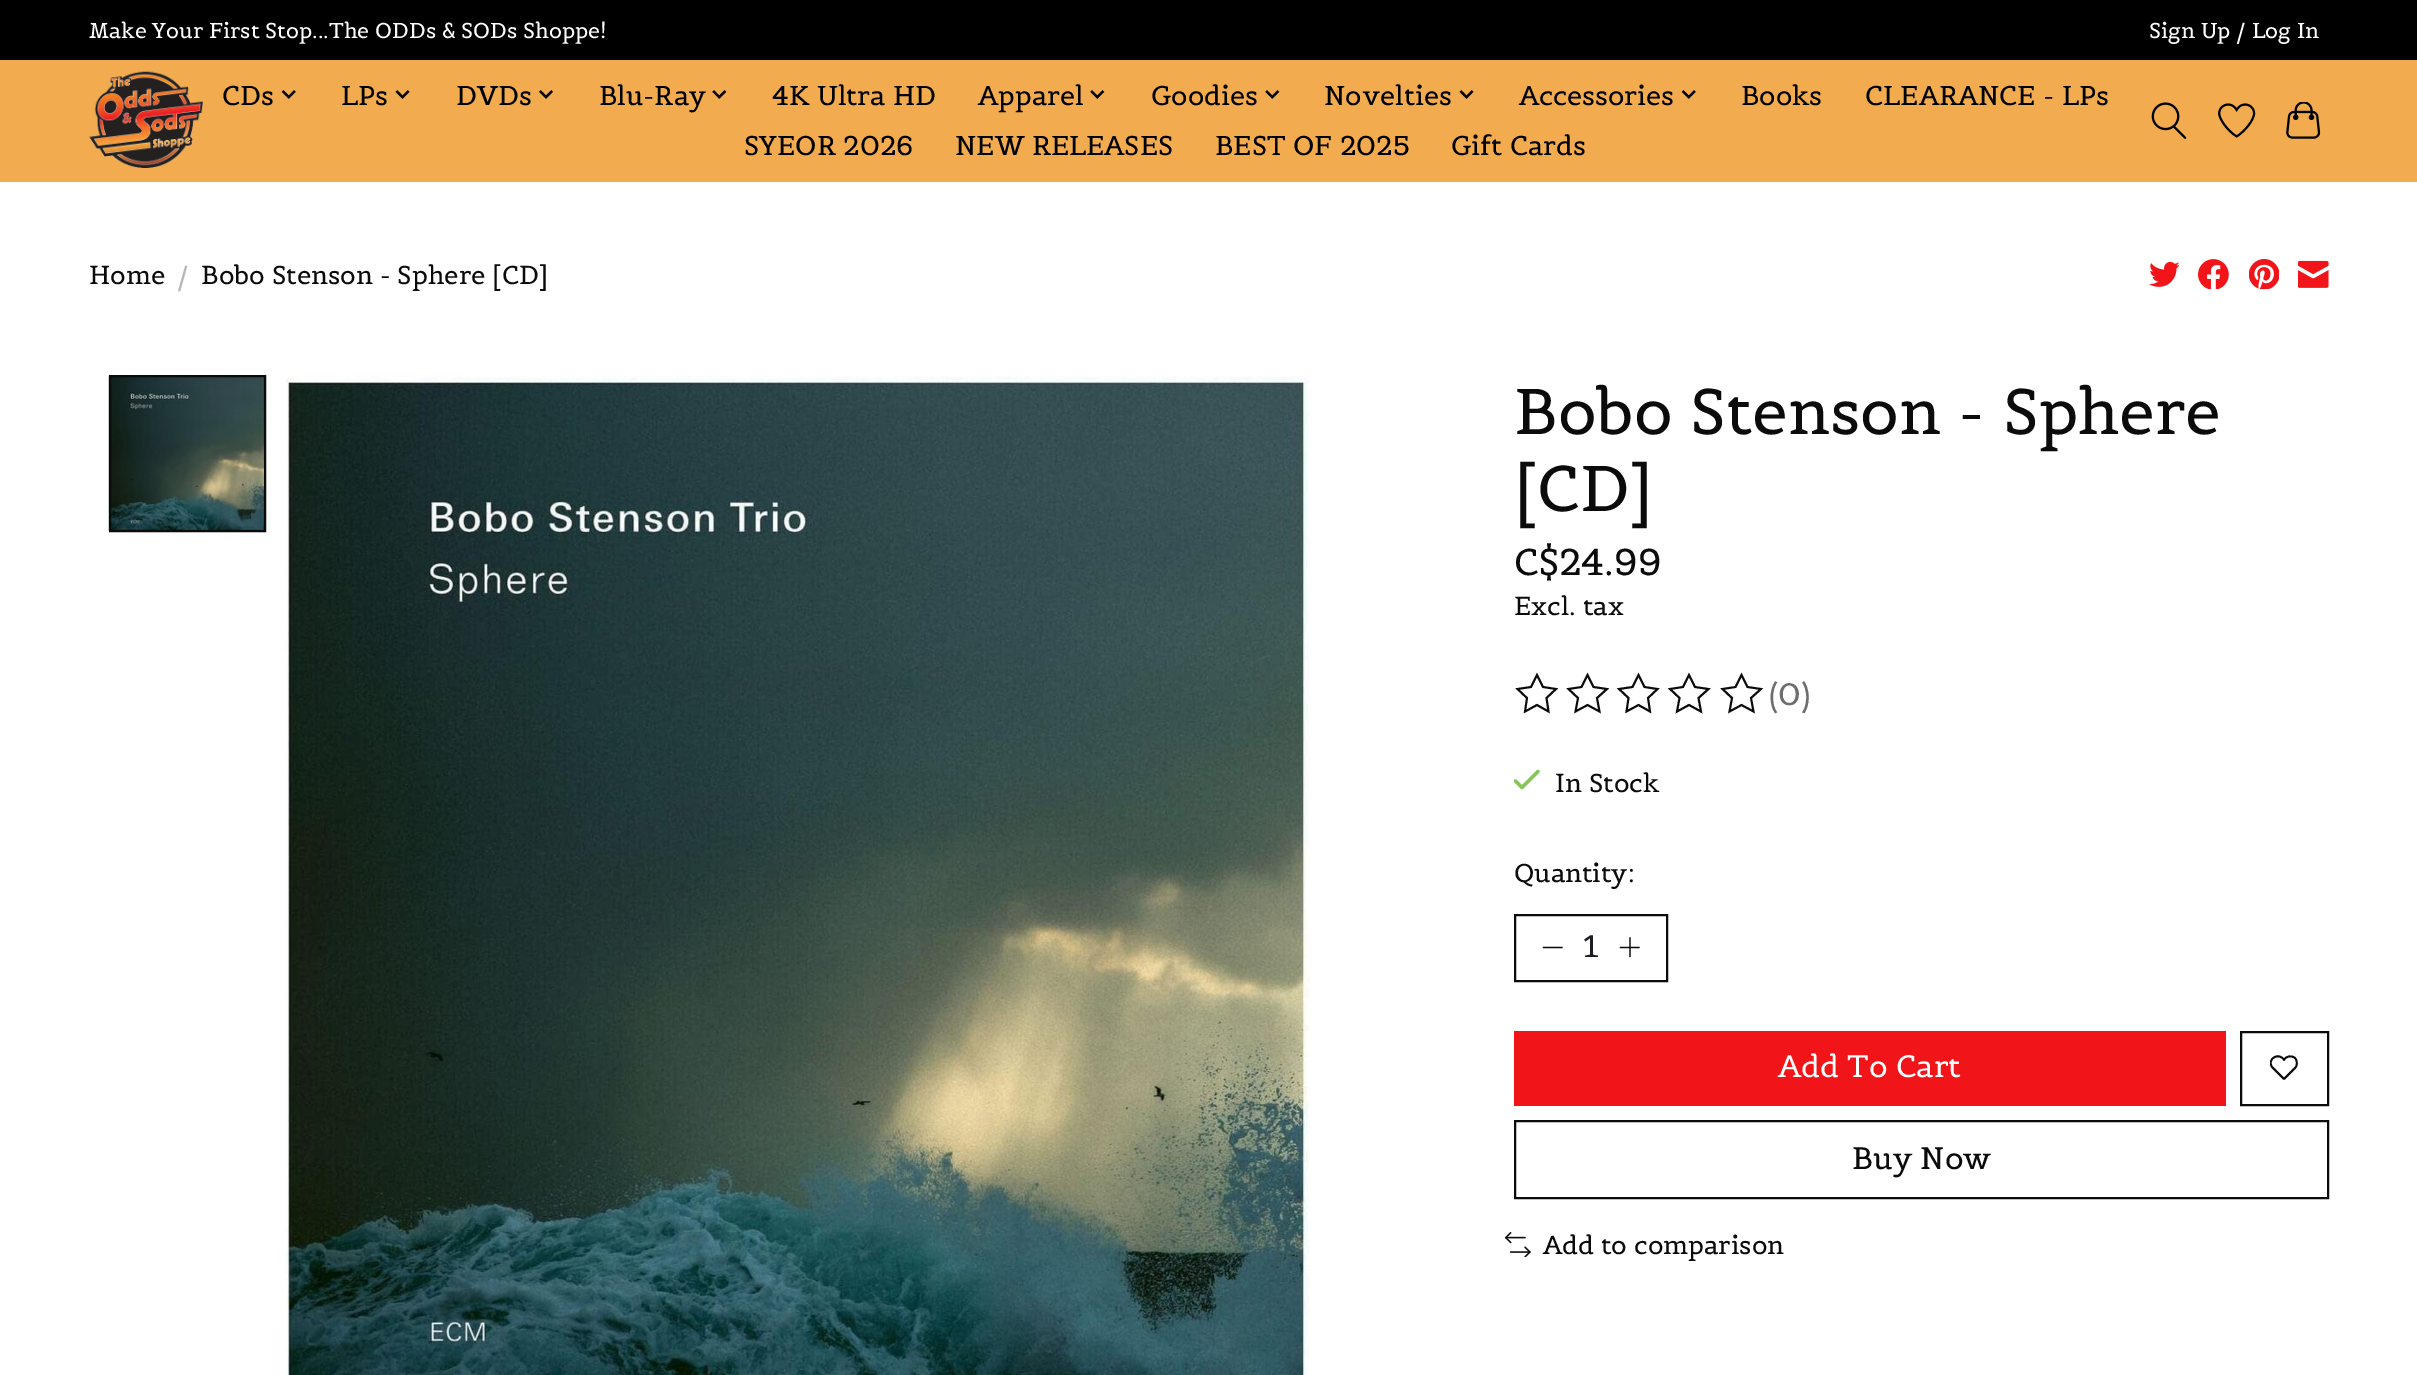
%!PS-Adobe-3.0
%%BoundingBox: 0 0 2417 1375
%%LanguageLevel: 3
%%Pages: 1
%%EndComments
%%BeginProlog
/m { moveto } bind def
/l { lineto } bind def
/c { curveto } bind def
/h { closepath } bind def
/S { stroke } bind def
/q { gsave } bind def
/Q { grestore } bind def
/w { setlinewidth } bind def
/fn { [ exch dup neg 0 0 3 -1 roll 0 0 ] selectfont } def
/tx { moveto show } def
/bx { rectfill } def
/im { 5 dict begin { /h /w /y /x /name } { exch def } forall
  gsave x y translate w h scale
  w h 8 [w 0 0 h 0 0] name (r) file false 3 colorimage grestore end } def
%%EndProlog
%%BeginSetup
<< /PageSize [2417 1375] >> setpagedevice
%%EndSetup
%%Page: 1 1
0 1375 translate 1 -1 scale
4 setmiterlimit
1 setgray
0 0 2417 1375 bx
0.949 0.671 0.31 setrgbcolor
0 60 2417 122 bx
0 setgray
0 0 2417 60 bx
/Belgrano-Regular 21.4 fn
1 setgray
(Make Your First Stop...The ODDs & SODs Shoppe!) 89 38 tx
(Sign Up / Log In) 2149 38 tx
(image0.raw) 89 71 114 97 im
/Belgrano-Regular 27 fn
0 setgray
(CDs) 222 105 tx
(image1.raw) 281 90 15 9 im
(LPs) 341 105 tx
(image2.raw) 395 90 15 9 im
(DVDs) 456 105 tx
(image3.raw) 539 90 14 9 im
(Blu-Ray) 599 105 tx
(image4.raw) 712 90 15 9 im
(4K Ultra HD) 772 105 tx
(Apparel) 978 105 tx
(image4.raw) 1090 90 15 9 im
(Goodies) 1151 105 tx
(image4.raw) 1265 90 15 9 im
(Novelties) 1324 105 tx
(image2.raw) 1459 90 15 9 im
(Accessories) 1519 105 tx
(image1.raw) 1681 90 15 9 im
(Books) 1741 105 tx
(CLEARANCE - LPs) 1865 105 tx
(SYEOR 2026) 744 155 tx
(NEW RELEASES) 955 155 tx
(BEST OF 2025) 1215 155 tx
(Gift Cards) 1451 155 tx
(image5.raw) 2151 102 36 37 im
(image6.raw) 2218 103 38 35 im
(image7.raw) 2286 102 35 37 im
/Belgrano-Regular 25.7 fn
0.043 setgray
(Home) 89 284 tx
0.714 setgray
(/) 177 284 tx
0.043 setgray
(Bobo Stenson - Sphere [CD]) 201 284 tx
(image8.raw) 2149 261 30 26 im
(image9.raw) 2198 259 31 30 im
(image10.raw) 2249 259 30 30 im
(image11.raw) 2298 260 31 28 im
(image12.raw) 108 374 158 158 im
2 w
110 376 155 155 rectstroke
(image13.raw) 285 376 1025 999 im
/Belgrano-Regular 63.9 fn
(Bobo Stenson - Sphere) 1514 434 tx
([CD]) 1514 511 tx
/Belgrano-Regular 37 fn
(C$24.99) 1514 575 tx
/Belgrano-Regular 25.7 fn
(Excl. tax) 1514 615 tx
1.9 w
1537 675 m 1543 687 l 1556 689 l 1546.5 698 l 1548.5 711.5 l 1537 705 l 1525 711.5 l 1527 698 l 1517.5 689 l 1531 687 l h S
1587.5 675 m 1593.5 687 l 1607 689 l 1597 698 l 1599.5 711.5 l 1587.5 705 l 1575.5 711.5 l 1578 698 l 1568.5 689 l 1581.5 687 l h S
1638.5 675 m 1644.5 687 l 1657.5 689 l 1648 698 l 1650 711.5 l 1638.5 705 l 1626.5 711.5 l 1628.5 698 l 1619 689 l 1632.5 687 l h S
1689 675 m 1695 687 l 1708.5 689 l 1698.5 698 l 1701 711.5 l 1689 705 l 1677 711.5 l 1679.5 698 l 1670 689 l 1683 687 l h S
1741.5 675 m 1747.5 687 l 1761 689 l 1751 698 l 1753.5 711.5 l 1741.5 705 l 1729.5 711.5 l 1732 698 l 1722.5 689 l 1735.5 687 l h S
/Belgrano-Regular 30.75 fn
0.427 setgray
(\(0\)) 1769 705 tx
0.533 0.773 0.349 setrgbcolor
3.2 w
1 setlinecap
1 setlinejoin
1515.5 781 m 1522 787.5 l 1538 771.5 l S
/Belgrano-Regular 25.7 fn
0.043 setgray
(In Stock) 1555 792 tx
(Quantity:) 1514 882 tx
2 w
0 setlinecap
0 setlinejoin
1515 915 152 66 rectstroke
1.3 w
1 setlinecap
1 setlinejoin
1543.5 947.5 m 1562 947.5 l S
/Belgrano-Regular 30.75 fn
0.11 0.11 0.129 setrgbcolor
(1) 1583 957 tx
0.043 setgray
1630 938 m 1630 956.5 l 1620.5 947.5 m 1639 947.5 l S
0.945 0.078 0.094 setrgbcolor
1514 1031 712 75 bx
1 setgray
(Add To Cart) 1778 1077 tx
0.043 setgray
2 w
0 setlinecap
0 setlinejoin
2241 1032 87 73 rectstroke
q
2270 1054 28 28 rectclip
1.8 w
1 setlinecap
1 setlinejoin
2295 1058 m 2291.5 1055 2286 1056 2284 1060 c 2279 1051.5 2266.5 1059 2272 1067 c 2284 1079 l 2295 1068 l 2297.5 1065.5 2297.5 1061 2295 1058 c h S
Q
1515 1121 813 77 rectstroke
(Buy Now) 1852 1169 tx
(image14.raw) 1505 1232 26 25 im
/Belgrano-Regular 25.7 fn
(Add to comparison) 1543 1254 tx
showpage
%%EOF
